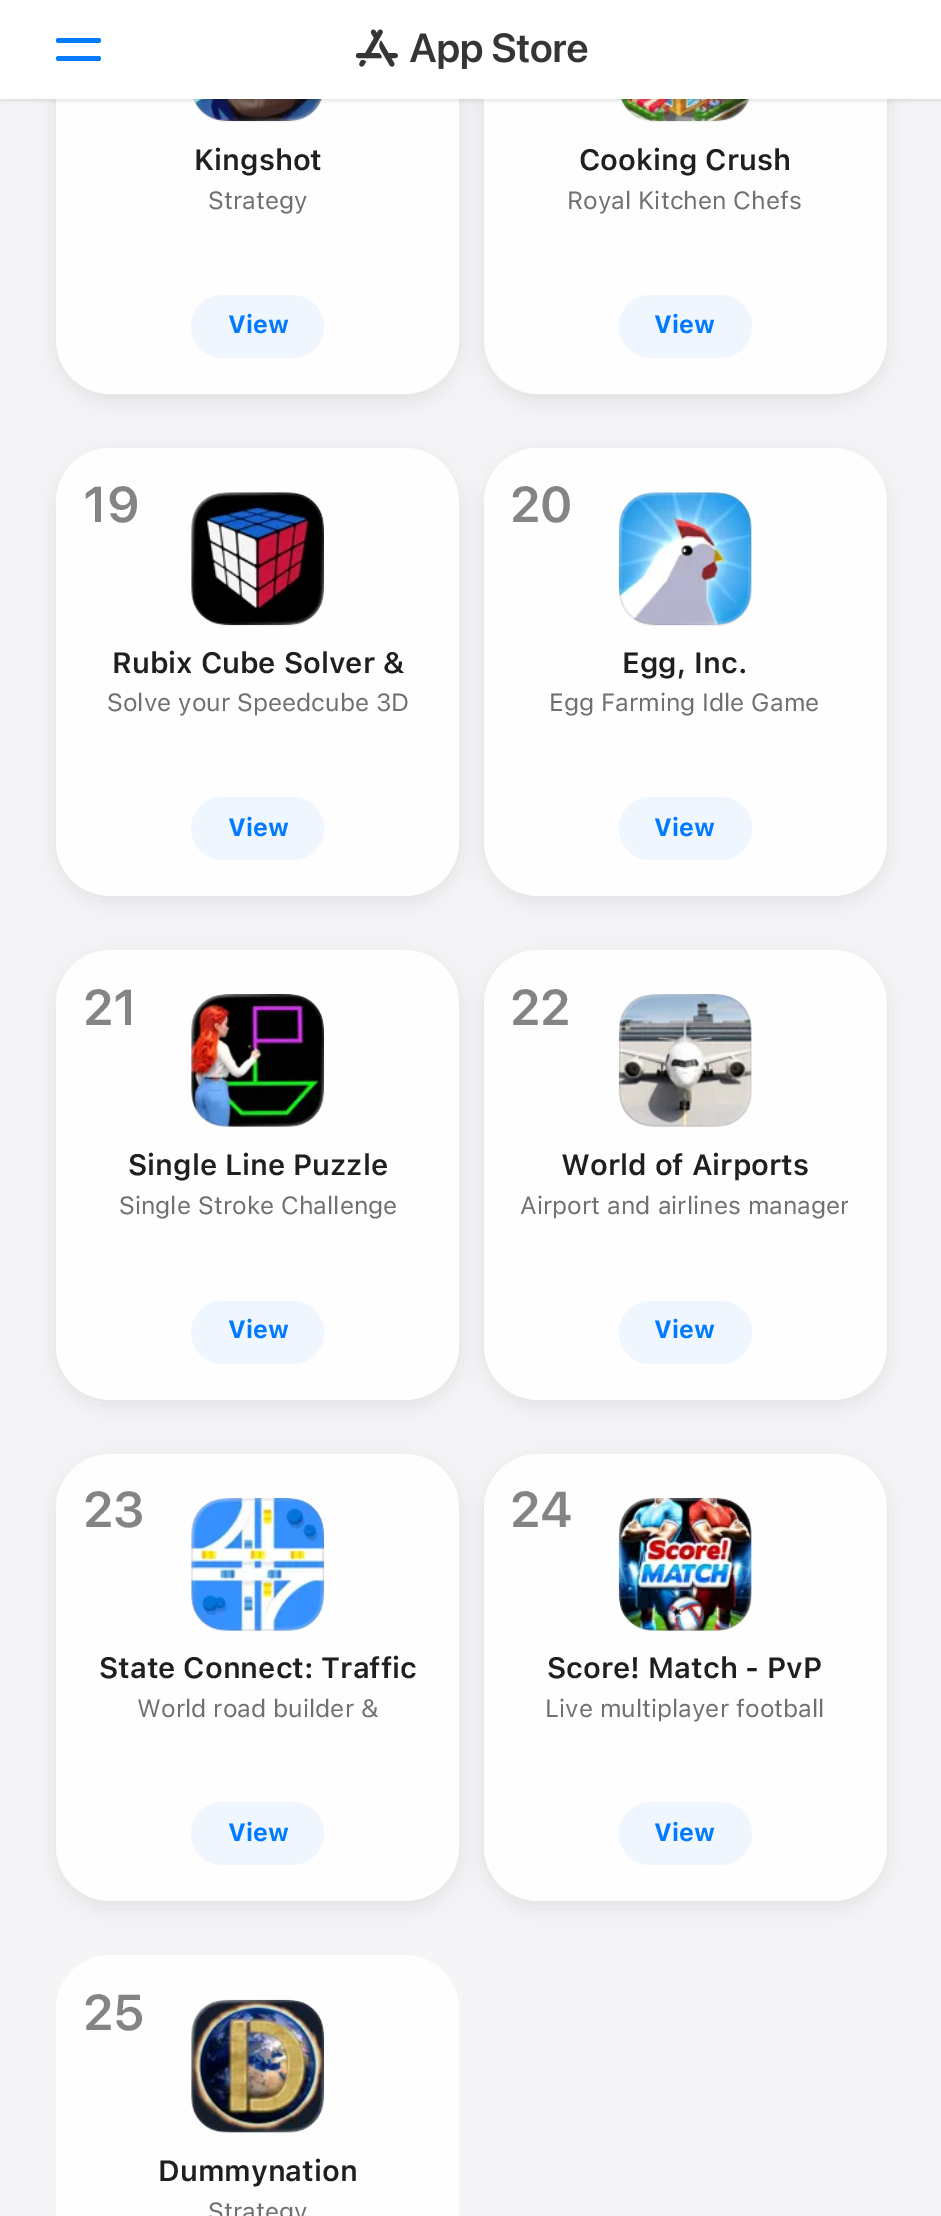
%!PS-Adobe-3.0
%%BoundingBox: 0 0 941 2216
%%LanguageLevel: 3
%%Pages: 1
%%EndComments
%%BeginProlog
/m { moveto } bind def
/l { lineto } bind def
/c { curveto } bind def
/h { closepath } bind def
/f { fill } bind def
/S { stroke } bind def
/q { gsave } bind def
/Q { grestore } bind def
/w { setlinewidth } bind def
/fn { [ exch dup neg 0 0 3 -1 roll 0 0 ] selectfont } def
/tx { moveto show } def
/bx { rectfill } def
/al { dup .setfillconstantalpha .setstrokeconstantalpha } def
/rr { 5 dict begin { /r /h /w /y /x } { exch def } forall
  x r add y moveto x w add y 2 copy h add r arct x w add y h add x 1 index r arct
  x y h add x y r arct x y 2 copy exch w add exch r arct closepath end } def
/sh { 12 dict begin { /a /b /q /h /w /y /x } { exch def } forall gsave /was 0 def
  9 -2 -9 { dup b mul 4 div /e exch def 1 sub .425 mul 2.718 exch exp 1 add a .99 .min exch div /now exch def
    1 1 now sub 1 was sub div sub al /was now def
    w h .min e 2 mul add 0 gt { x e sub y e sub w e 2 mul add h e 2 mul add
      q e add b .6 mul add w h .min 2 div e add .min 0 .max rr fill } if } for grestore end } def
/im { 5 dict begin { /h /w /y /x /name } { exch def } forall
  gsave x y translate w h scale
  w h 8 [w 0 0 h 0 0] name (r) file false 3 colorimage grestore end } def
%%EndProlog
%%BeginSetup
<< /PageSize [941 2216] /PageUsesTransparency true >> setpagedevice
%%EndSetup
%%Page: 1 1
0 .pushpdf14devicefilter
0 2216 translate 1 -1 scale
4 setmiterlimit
0.961 0.961 0.969 setrgbcolor
0 0 941 2216 bx
q
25 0 m 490 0 l 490 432 l 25 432 l h 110 -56 m 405 -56 l 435 -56 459 -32 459 -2 c 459 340 l 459 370 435 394 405 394 c 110 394 l 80 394 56 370 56 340 c 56 -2 l 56 -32 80 -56 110 -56 c h eoclip newpath
0 setgray
56 -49 403 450 54 10 0.08 sh
Q
0.92 al
1 setgray
56 -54 403 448 54 rr f
1 al
(image1.raw) 193 99 129 22 im
0.1 al
0.502 setgray
2 w
192 -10 131 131 33 rr S
q
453 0 m 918 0 l 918 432 l 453 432 l h 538 -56 m 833 -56 l 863 -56 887 -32 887 -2 c 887 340 l 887 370 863 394 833 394 c 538 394 l 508 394 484 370 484 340 c 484 -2 l 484 -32 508 -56 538 -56 c h eoclip newpath
1 al
0 setgray
484 -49 403 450 54 10 0.08 sh
Q
0.92 al
1 setgray
484 -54 403 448 54 rr f
1 al
(image2.raw) 621 99 129 22 im
0.1 al
0.502 setgray
620 -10 131 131 33 rr S
1 al
0 setgray
0 2 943 99 0 2 0.1 sh
1 setgray
0 0 941 99 bx
0 0.478 1 setrgbcolor
56 38 45 5 2.5 rr f
56 56 45 5 2.5 rr f
(image0.raw) 356 29 232 40 im
/SF-SemiBold 29.25 fn
0.122 setgray
(Kingshot) 194 170 tx
/SF-Regular 24.75 fn
0.439 setgray
(Strategy) 208 209 tx
0.937 0.965 0.996 setrgbcolor
191 295 133 63 31.5 rr f
/SF-Bold 24.75 fn
0 0.478 1 setrgbcolor
(View) 228 333 tx
/SF-SemiBold 29.25 fn
0.122 setgray
(Cooking Crush) 579 170 tx
/SF-Regular 24.75 fn
0.439 setgray
(Royal Kitchen Chefs) 567 209 tx
0.937 0.965 0.996 setrgbcolor
619 295 133 63 31.5 rr f
/SF-Bold 24.75 fn
0 0.478 1 setrgbcolor
(View) 654 333 tx
q
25 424 m 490 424 l 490 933 l 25 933 l h 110 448 m 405 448 l 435 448 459 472 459 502 c 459 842 l 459 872 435 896 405 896 c 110 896 l 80 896 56 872 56 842 c 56 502 l 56 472 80 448 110 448 c h eoclip newpath
0 setgray
56 455 403 447 54 10 0.08 sh
Q
0.92 al
1 setgray
56 448 403 448 54 rr f
/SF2-SemiBold 50 fn
1 al
0.518 setgray
(19) 83 522 tx
(image3.raw) 191 492 133 133 im
0.1 al
0.502 setgray
192 494 131 131 33 rr S
/SF-SemiBold 29.25 fn
1 al
0.122 setgray
(Rubix Cube Solver &) 112 673 tx
/SF-Regular 24.75 fn
0.439 setgray
(Solve your Speedcube 3D) 107 711 tx
0.937 0.965 0.996 setrgbcolor
191 797 133 63 31.5 rr f
/SF-Bold 24.75 fn
0 0.478 1 setrgbcolor
(View) 228 836 tx
q
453 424 m 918 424 l 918 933 l 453 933 l h 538 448 m 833 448 l 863 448 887 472 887 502 c 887 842 l 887 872 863 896 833 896 c 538 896 l 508 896 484 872 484 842 c 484 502 l 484 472 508 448 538 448 c h eoclip newpath
0 setgray
484 455 403 447 54 10 0.08 sh
Q
0.92 al
1 setgray
484 448 403 448 54 rr f
/SF2-SemiBold 50 fn
1 al
0.518 setgray
(20) 510 522 tx
(image4.raw) 618 492 134 133 im
0.1 al
0.502 setgray
620 494 131 131 33 rr S
/SF-SemiBold 29.25 fn
1 al
0.122 setgray
(Egg, Inc.) 622 673 tx
/SF-Regular 24.75 fn
0.439 setgray
(Egg Farming Idle Game) 549 711 tx
0.937 0.965 0.996 setrgbcolor
619 797 133 63 31.5 rr f
/SF-Bold 24.75 fn
0 0.478 1 setrgbcolor
(View) 654 836 tx
q
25 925 m 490 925 l 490 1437 l 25 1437 l h 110 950 m 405 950 l 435 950 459 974 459 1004 c 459 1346 l 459 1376 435 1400 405 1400 c 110 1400 l 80 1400 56 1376 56 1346 c 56 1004 l 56 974 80 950 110 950 c h eoclip newpath
0 setgray
56 956 403 450 54 10 0.08 sh
Q
0.92 al
1 setgray
56 950 403 450 54 rr f
/SF2-SemiBold 50 fn
1 al
0.518 setgray
(21) 83 1025 tx
(image5.raw) 191 994 133 133 im
0.1 al
0.502 setgray
192 996 131 130 33 rr S
/SF-SemiBold 29.25 fn
1 al
0.122 setgray
(Single Line Puzzle) 128 1175 tx
/SF-Regular 24.75 fn
0.439 setgray
(Single Stroke Challenge) 119 1214 tx
0.937 0.965 0.996 setrgbcolor
191 1301 133 63 31.5 rr f
/SF-Bold 24.75 fn
0 0.478 1 setrgbcolor
(View) 228 1338 tx
q
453 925 m 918 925 l 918 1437 l 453 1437 l h 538 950 m 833 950 l 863 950 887 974 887 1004 c 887 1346 l 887 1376 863 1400 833 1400 c 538 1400 l 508 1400 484 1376 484 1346 c 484 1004 l 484 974 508 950 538 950 c h eoclip newpath
0 setgray
484 956 403 450 54 10 0.08 sh
Q
0.92 al
1 setgray
484 950 403 450 54 rr f
/SF2-SemiBold 50 fn
1 al
0.518 setgray
(22) 510 1025 tx
(image6.raw) 618 994 134 133 im
0.1 al
0.502 setgray
620 996 131 130 33 rr S
/SF-SemiBold 29.25 fn
1 al
0.122 setgray
(World of Airports) 561 1175 tx
q
520 1193 328 31 rectclip
/SF-Regular 24.75 fn
0.439 setgray
(Airport and airlines manager) 520 1214 tx
Q
0.937 0.965 0.996 setrgbcolor
619 1301 133 63 31.5 rr f
/SF-Bold 24.75 fn
0 0.478 1 setrgbcolor
(View) 654 1338 tx
q
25 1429 m 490 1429 l 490 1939 l 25 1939 l h 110 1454 m 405 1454 l 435 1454 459 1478 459 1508 c 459 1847 l 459 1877 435 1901 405 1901 c 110 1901 l 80 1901 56 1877 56 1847 c 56 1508 l 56 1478 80 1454 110 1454 c h eoclip newpath
0 setgray
56 1460 403 448 54 10 0.08 sh
Q
0.92 al
1 setgray
56 1454 403 447 54 rr f
/SF2-SemiBold 50 fn
1 al
0.518 setgray
(23) 83 1527 tx
(image7.raw) 191 1498 133 133 im
0.1 al
0.502 setgray
192 1500 131 130 33 rr S
/SF-SemiBold 29.25 fn
1 al
0.122 setgray
(State Connect: Traffic) 99 1678 tx
/SF-Regular 24.75 fn
0.439 setgray
(World road builder &) 137 1717 tx
0.937 0.965 0.996 setrgbcolor
191 1802 133 63 31.5 rr f
/SF-Bold 24.75 fn
0 0.478 1 setrgbcolor
(View) 228 1841 tx
q
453 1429 m 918 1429 l 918 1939 l 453 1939 l h 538 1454 m 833 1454 l 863 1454 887 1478 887 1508 c 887 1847 l 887 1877 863 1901 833 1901 c 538 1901 l 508 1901 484 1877 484 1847 c 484 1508 l 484 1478 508 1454 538 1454 c h eoclip newpath
0 setgray
484 1460 403 448 54 10 0.08 sh
Q
0.92 al
1 setgray
484 1454 403 447 54 rr f
/SF2-SemiBold 50 fn
1 al
0.518 setgray
(24) 510 1527 tx
(image8.raw) 618 1498 134 133 im
0.1 al
0.502 setgray
620 1500 131 130 33 rr S
/SF-SemiBold 29.25 fn
1 al
0.122 setgray
(Score! Match - PvP) 547 1678 tx
/SF-Regular 24.75 fn
0.439 setgray
(Live multiplayer football) 545 1717 tx
0.937 0.965 0.996 setrgbcolor
619 1802 133 63 31.5 rr f
/SF-Bold 24.75 fn
0 0.478 1 setrgbcolor
(View) 654 1841 tx
0.92 al
1 setgray
56 1955 403 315 54 rr f
/SF2-SemiBold 50 fn
1 al
0.518 setgray
(25) 83 2030 tx
(image9.raw) 191 1999 133 134 im
0.1 al
0.502 setgray
192 2001 131 131 33 rr S
/SF-SemiBold 29.25 fn
1 al
0.122 setgray
(Dummynation) 158 2181 tx
/SF-Regular 24.75 fn
0.439 setgray
(Strategy) 208 2220 tx
.poppdf14devicefilter showpage
%%EOF
